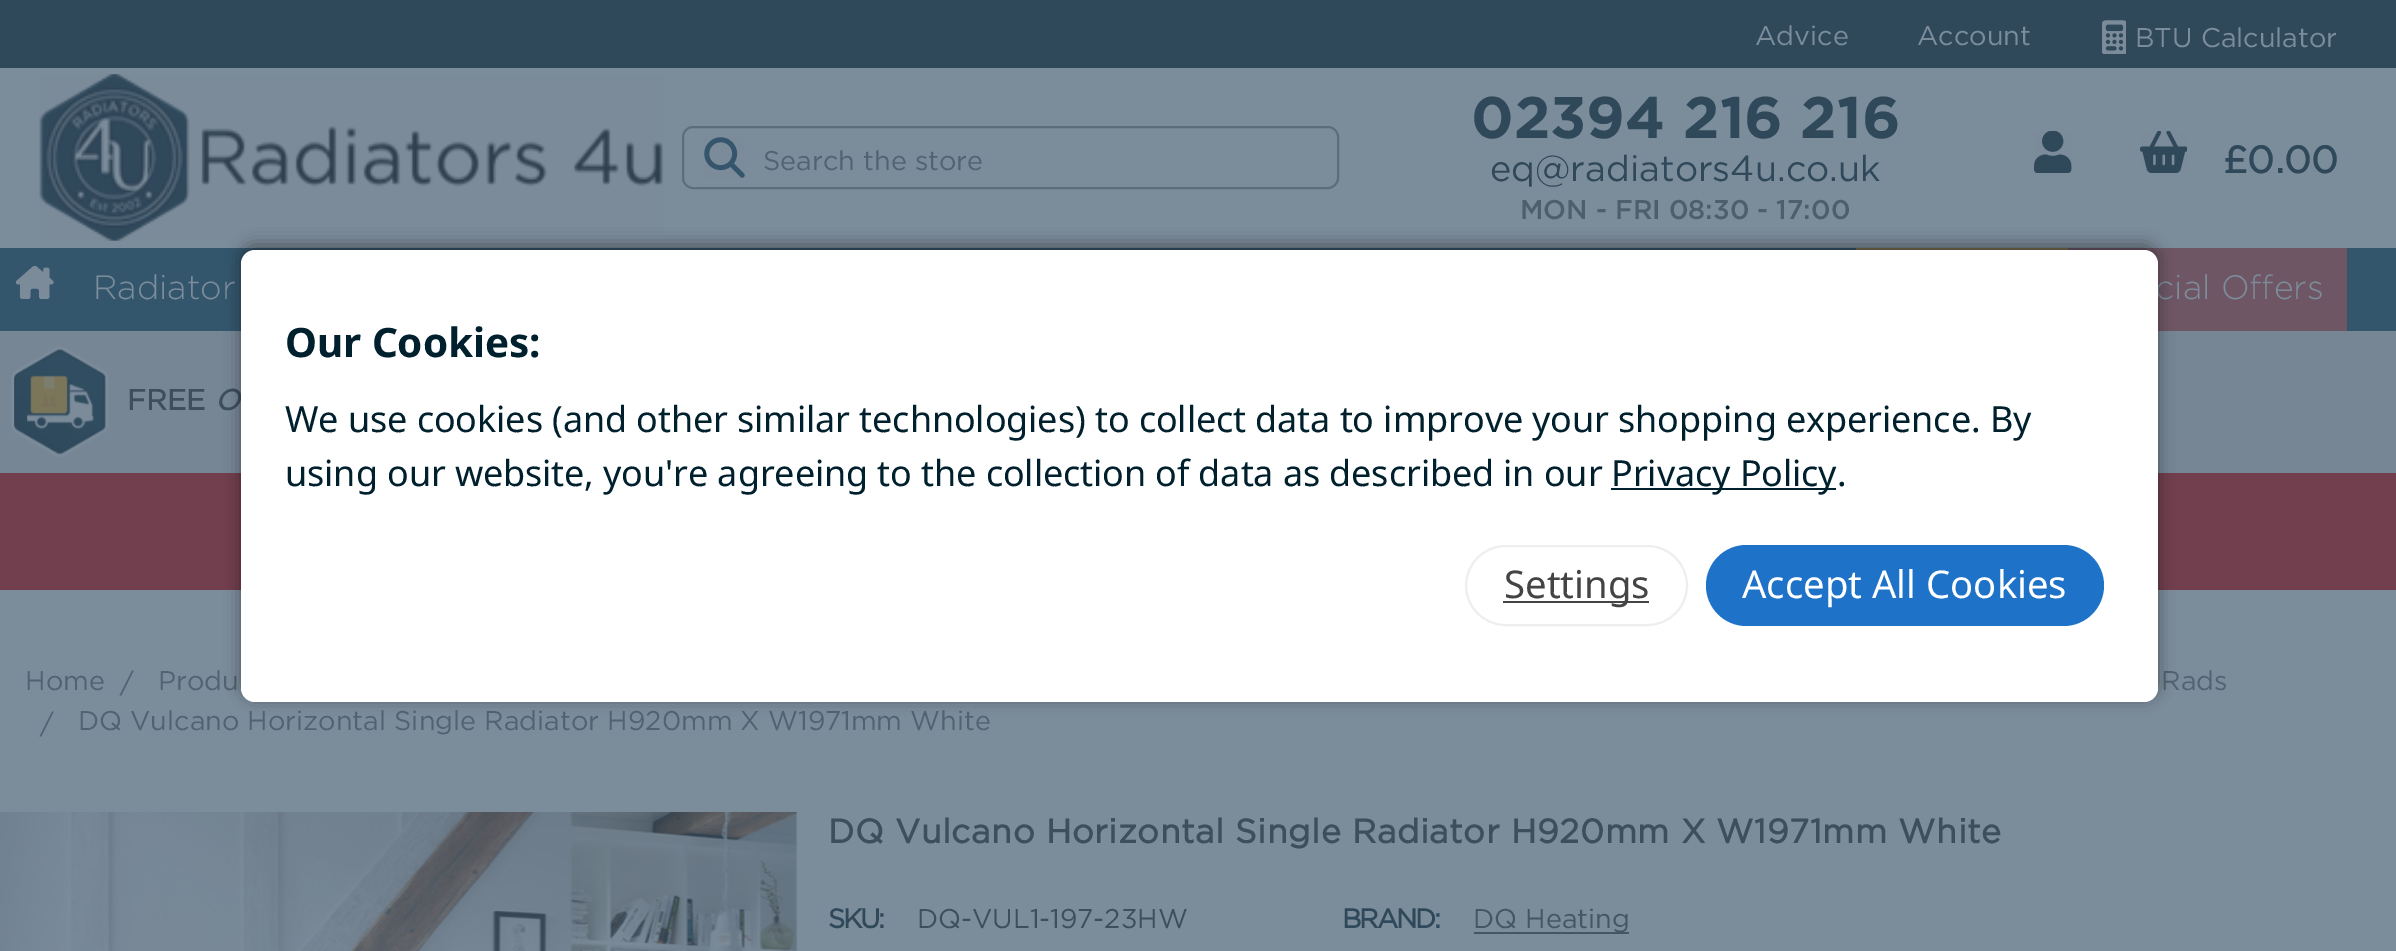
%!PS-Adobe-3.0
%%BoundingBox: 0 0 2396 951
%%LanguageLevel: 3
%%Pages: 1
%%EndComments
%%BeginProlog
/m { moveto } bind def
/f { fill } bind def
/S { stroke } bind def
/w { setlinewidth } bind def
/fn { [ exch dup neg 0 0 3 -1 roll 0 0 ] selectfont } def
/tx { moveto show } def
/bx { rectfill } def
/al { dup .setfillconstantalpha .setstrokeconstantalpha } def
/rr { 5 dict begin { /r /h /w /y /x } { exch def } forall
  x r add y moveto x w add y 2 copy h add r arct x w add y h add x 1 index r arct
  x y h add x y r arct x y 2 copy exch w add exch r arct closepath end } def
/sh { 12 dict begin { /a /b /q /h /w /y /x } { exch def } forall gsave /was 0 def
  9 -2 -9 { dup b mul 4 div /e exch def 1 sub .425 mul 2.718 exch exp 1 add a .99 .min exch div /now exch def
    1 1 now sub 1 was sub div sub al /was now def
    w h .min e 2 mul add 0 gt { x e sub y e sub w e 2 mul add h e 2 mul add
      q e add b .6 mul add w h .min 2 div e add .min 0 .max rr fill } if } for grestore end } def
/im { 5 dict begin { /h /w /y /x /name } { exch def } forall
  gsave x y translate w h scale
  w h 8 [w 0 0 h 0 0] name (r) file false 3 colorimage grestore end } def
%%EndProlog
%%BeginSetup
<< /PageSize [2396 951] /PageUsesTransparency true >> setpagedevice
%%EndSetup
%%Page: 1 1
0 .pushpdf14devicefilter
0 951 translate 1 -1 scale
4 setmiterlimit
0.482 0.549 0.604 setrgbcolor
0 0 2396 951 bx
0.184 0.286 0.357 setrgbcolor
0 0 2396 68 bx
/Gotham-Regular 27 fn
0.482 0.549 0.604 setrgbcolor
(Advice) 1755 45 tx
(Account) 1917 45 tx
(image0.raw) 2102 20 24 34 im
(BTU Calculator) 2135 47 tx
(image1.raw) 39 74 625 167 im
0.365 0.427 0.486 setrgbcolor
2 w
683 127 655 61 10 rr S
(image2.raw) 704 137 41 41 im
0.322 0.384 0.447 setrgbcolor
(Search the store) 763 170 tx
/Gotham-Bold 58.5 fn
0.184 0.286 0.357 setrgbcolor
(02394 216 216) 1471 138 tx
/Gotham-Regular 36 fn
(eq@radiators4u.co.uk) 1490 181 tx
/Gotham-Medium 27 fn
0.306 0.369 0.424 setrgbcolor
(MON - FRI 08:30 - 17:00) 1520 219 tx
(image3.raw) 2034 131 38 42 im
(image4.raw) 2140 131 47 42 im
/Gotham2-Bold 38 fn
0.184 0.286 0.357 setrgbcolor
(£0.00) 2223 173 tx
0.204 0.337 0.424 setrgbcolor
0 248 2396 83 bx
0.482 0.443 0.306 setrgbcolor
1856 248 212 2 bx
(image5.raw) 16 266 38 33 im
/Gotham-Light 33.75 fn
0.482 0.549 0.604 setrgbcolor
(Radiator) 93 299 tx
0.435 0.337 0.396 setrgbcolor
2068 248 279 83 bx
0.482 0.549 0.604 setrgbcolor
(cial Offers) 2155 299 tx
0.463 0.525 0.584 setrgbcolor
0 331 2396 142 bx
(image6.raw) 11 346 98 111 im
/Gotham2-Bold 29 fn
0.243 0.306 0.365 setrgbcolor
(FREE) 127 410 tx
/Gotham-BoldItalic 29 fn
(O) 215 410 tx
0.443 0.247 0.306 setrgbcolor
0 473 2396 117 bx
/Gotham-Regular 27 fn
0.322 0.384 0.447 setrgbcolor
(Home) 25 690 tx
(/) 120 692 tx
(Produ) 158 690 tx
(Rads) 2161 690 tx
(/) 40 733 tx
(DQ Vulcano Horizontal Single Radiator H920mm X W1971mm White) 78 730 tx
(image7.raw) 0 812 797 139 im
/Gotham2-Bold 33.75 fn
0.243 0.306 0.365 setrgbcolor
828 843 m 0.55 0 (DQ Vulcano Horizontal Single Radiator H920mm X W1971mm White) ashow
/Gotham2-Bold 27 fn
0.184 0.286 0.357 setrgbcolor
828 928 m -2.25 0 (SKU:) ashow
/Gotham-Regular 27 fn
0.243 0.306 0.365 setrgbcolor
(DQ-VUL1-197-23HW) 917 928 tx
/Gotham2-Bold 27 fn
0.184 0.286 0.357 setrgbcolor
1342 928 m -2.25 0 (BRAND:) ashow
0.271 0.333 0.392 setrgbcolor
1474 932 155 2 bx
/Gotham-Regular 27 fn
(DQ Heating) 1473 928 tx
0 setgray
241 245 1917 453 14 8 0.4 sh
1 setgray
241 250 1917 452 14 rr f
/NotoSans-Bold 40.5 fn
0 0.125 0.176 setrgbcolor
285 357 m -0.11 0 (Our Cookies:) ashow
/NotoSans-Regular 36 fn
285 432 m -0.11 0 (We use cookies \(and other similar technologies\) to collect data to improve your shopping experience. By) ashow
285 486 m -0.11 0 (using our website, you're agreeing to the collection of data as described in our) ashow
1611 488 225 2 bx
1611 486 m -0.11 0 (Privacy Policy.) ashow
0.933 setgray
1466 546 221 79 39.5 rr S
0.267 setgray
1503 601 146 2 bx
/NotoSans-Regular 38.25 fn
(Settings) 1504 598 tx
0.118 0.447 0.784 setrgbcolor
1706 545 398 81 40.5 rr f
1 setgray
(Accept All Cookies) 1742 598 tx
.poppdf14devicefilter showpage
%%EOF
